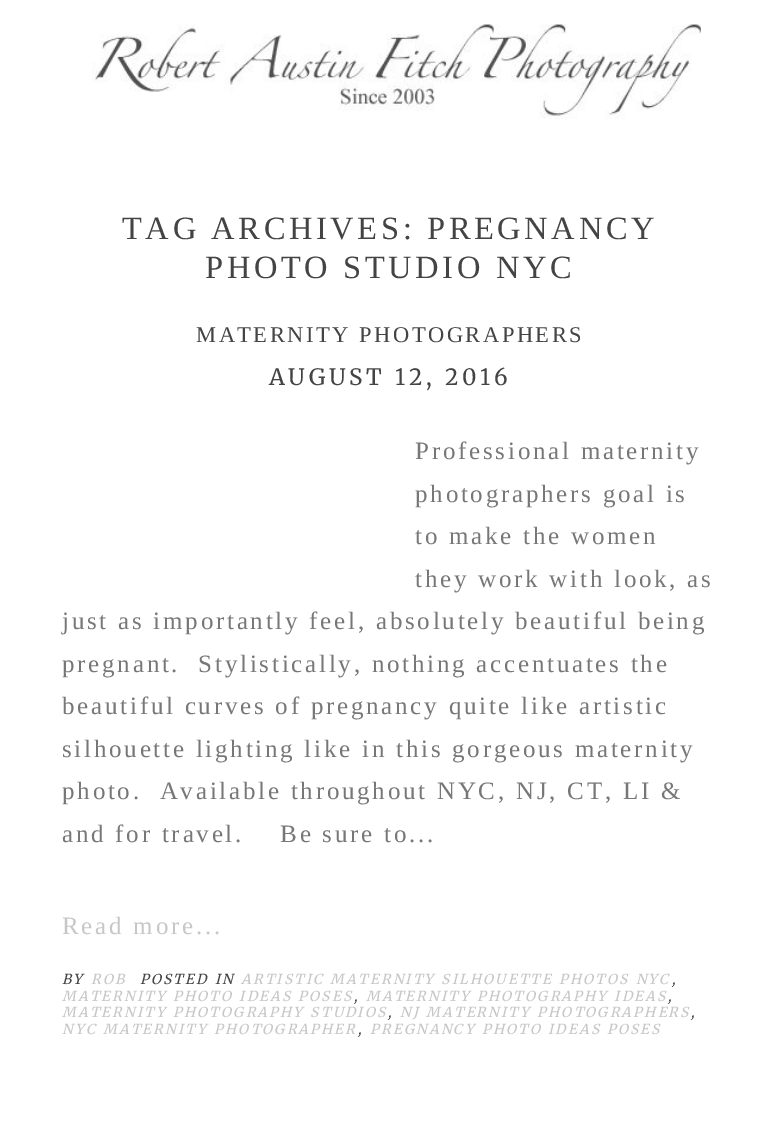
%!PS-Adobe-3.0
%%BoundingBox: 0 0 779 1131
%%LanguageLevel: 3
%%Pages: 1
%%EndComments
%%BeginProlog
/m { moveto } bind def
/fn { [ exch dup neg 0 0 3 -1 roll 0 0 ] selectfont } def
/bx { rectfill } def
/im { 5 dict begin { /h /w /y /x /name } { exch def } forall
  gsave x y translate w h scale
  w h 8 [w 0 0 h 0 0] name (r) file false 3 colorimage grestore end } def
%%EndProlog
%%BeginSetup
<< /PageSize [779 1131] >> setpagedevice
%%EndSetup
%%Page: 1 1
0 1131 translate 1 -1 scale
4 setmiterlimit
1 setgray
0 0 779 1131 bx
(image0.raw) 92 24 609 95 im
/LiberationSerif-Regular 32.5 fn
0.267 setgray
122 239 m 3.6 0 (TAG ARCHIVES: PREGNANCY) ashow
205 278 m 3.6 0 (PHOTO STUDIO NYC) ashow
/LiberationSerif-Regular 22.5 fn
196 342 m 2.5 0 (MATERNITY PHOTOGRAPHERS) ashow
/Merriweather-Light 22.5 fn
269 385 m 1 0 32 3.6 0 (AUGUST 12, 2016) awidthshow
/LiberationSerif-Regular 25 fn
0.467 setgray
415 459 m 2.75 0 (Professional maternity) ashow
415 502 m 2.75 0 (photographers goal is) ashow
415 544 m 2.75 0 (to make the women) ashow
415 587 m 2.75 0 (they work with look, as) ashow
62 629 m 2.75 0 (just as importantly feel, absolutely beautiful being) ashow
62 672 m 2.75 0 (pregnant.  Stylistically, nothing accentuates the) ashow
62 714 m 2.75 0 (beautiful curves of pregnancy quite like artistic) ashow
62 757 m 2.75 0 (silhouette lighting like in this gorgeous maternity) ashow
62 799 m 2.75 0 (photo.  Available throughout NYC, NJ, CT, LI &) ashow
62 842 m 2.75 0 (and for travel.    Be sure to...) ashow
0.78 setgray
62 934 m 2.75 0 (Read more...) ashow
/Merriweather-LightItalic 13.75 fn
0.267 setgray
62 984 m 2.2 0 (BY) ashow
0.78 setgray
91 984 m 2.2 0 (ROB) ashow
0.267 setgray
140 984 m 0.5 0 32 2.2 0 (POSTED IN) awidthshow
0.78 setgray
241 984 m 0.5 0 32 2.2 0 (ARTISTIC MATERNITY SILHOUETTE PHOTOS NYC) awidthshow
0.267 setgray
672 984 m 2.2 0 (,) ashow
0.78 setgray
62 1001 m 0.5 0 32 2.2 0 (MATERNITY PHOTO IDEAS POSES) awidthshow
0.267 setgray
354 1001 m 2.2 0 (,) ashow
0.78 setgray
366 1001 m 0.5 0 32 2.2 0 (MATERNITY PHOTOGRAPHY IDEAS) awidthshow
0.267 setgray
668 1001 m 2.2 0 (,) ashow
0.78 setgray
62 1017 m 0.5 0 32 2.2 0 (MATERNITY PHOTOGRAPHY STUDIOS) awidthshow
0.267 setgray
388 1017 m 2.2 0 (,) ashow
0.78 setgray
400 1017 m 0.5 0 32 2.2 0 (NJ MATERNITY PHOTOGRAPHERS) awidthshow
0.267 setgray
691 1017 m 2.2 0 (,) ashow
0.78 setgray
62 1034 m 0.5 0 32 2.2 0 (NYC MATERNITY PHOTOGRAPHER) awidthshow
0.267 setgray
358 1034 m 2.2 0 (,) ashow
0.78 setgray
370 1034 m 0.5 0 32 2.2 0 (PREGNANCY PHOTO IDEAS POSES) awidthshow
showpage
%%EOF
